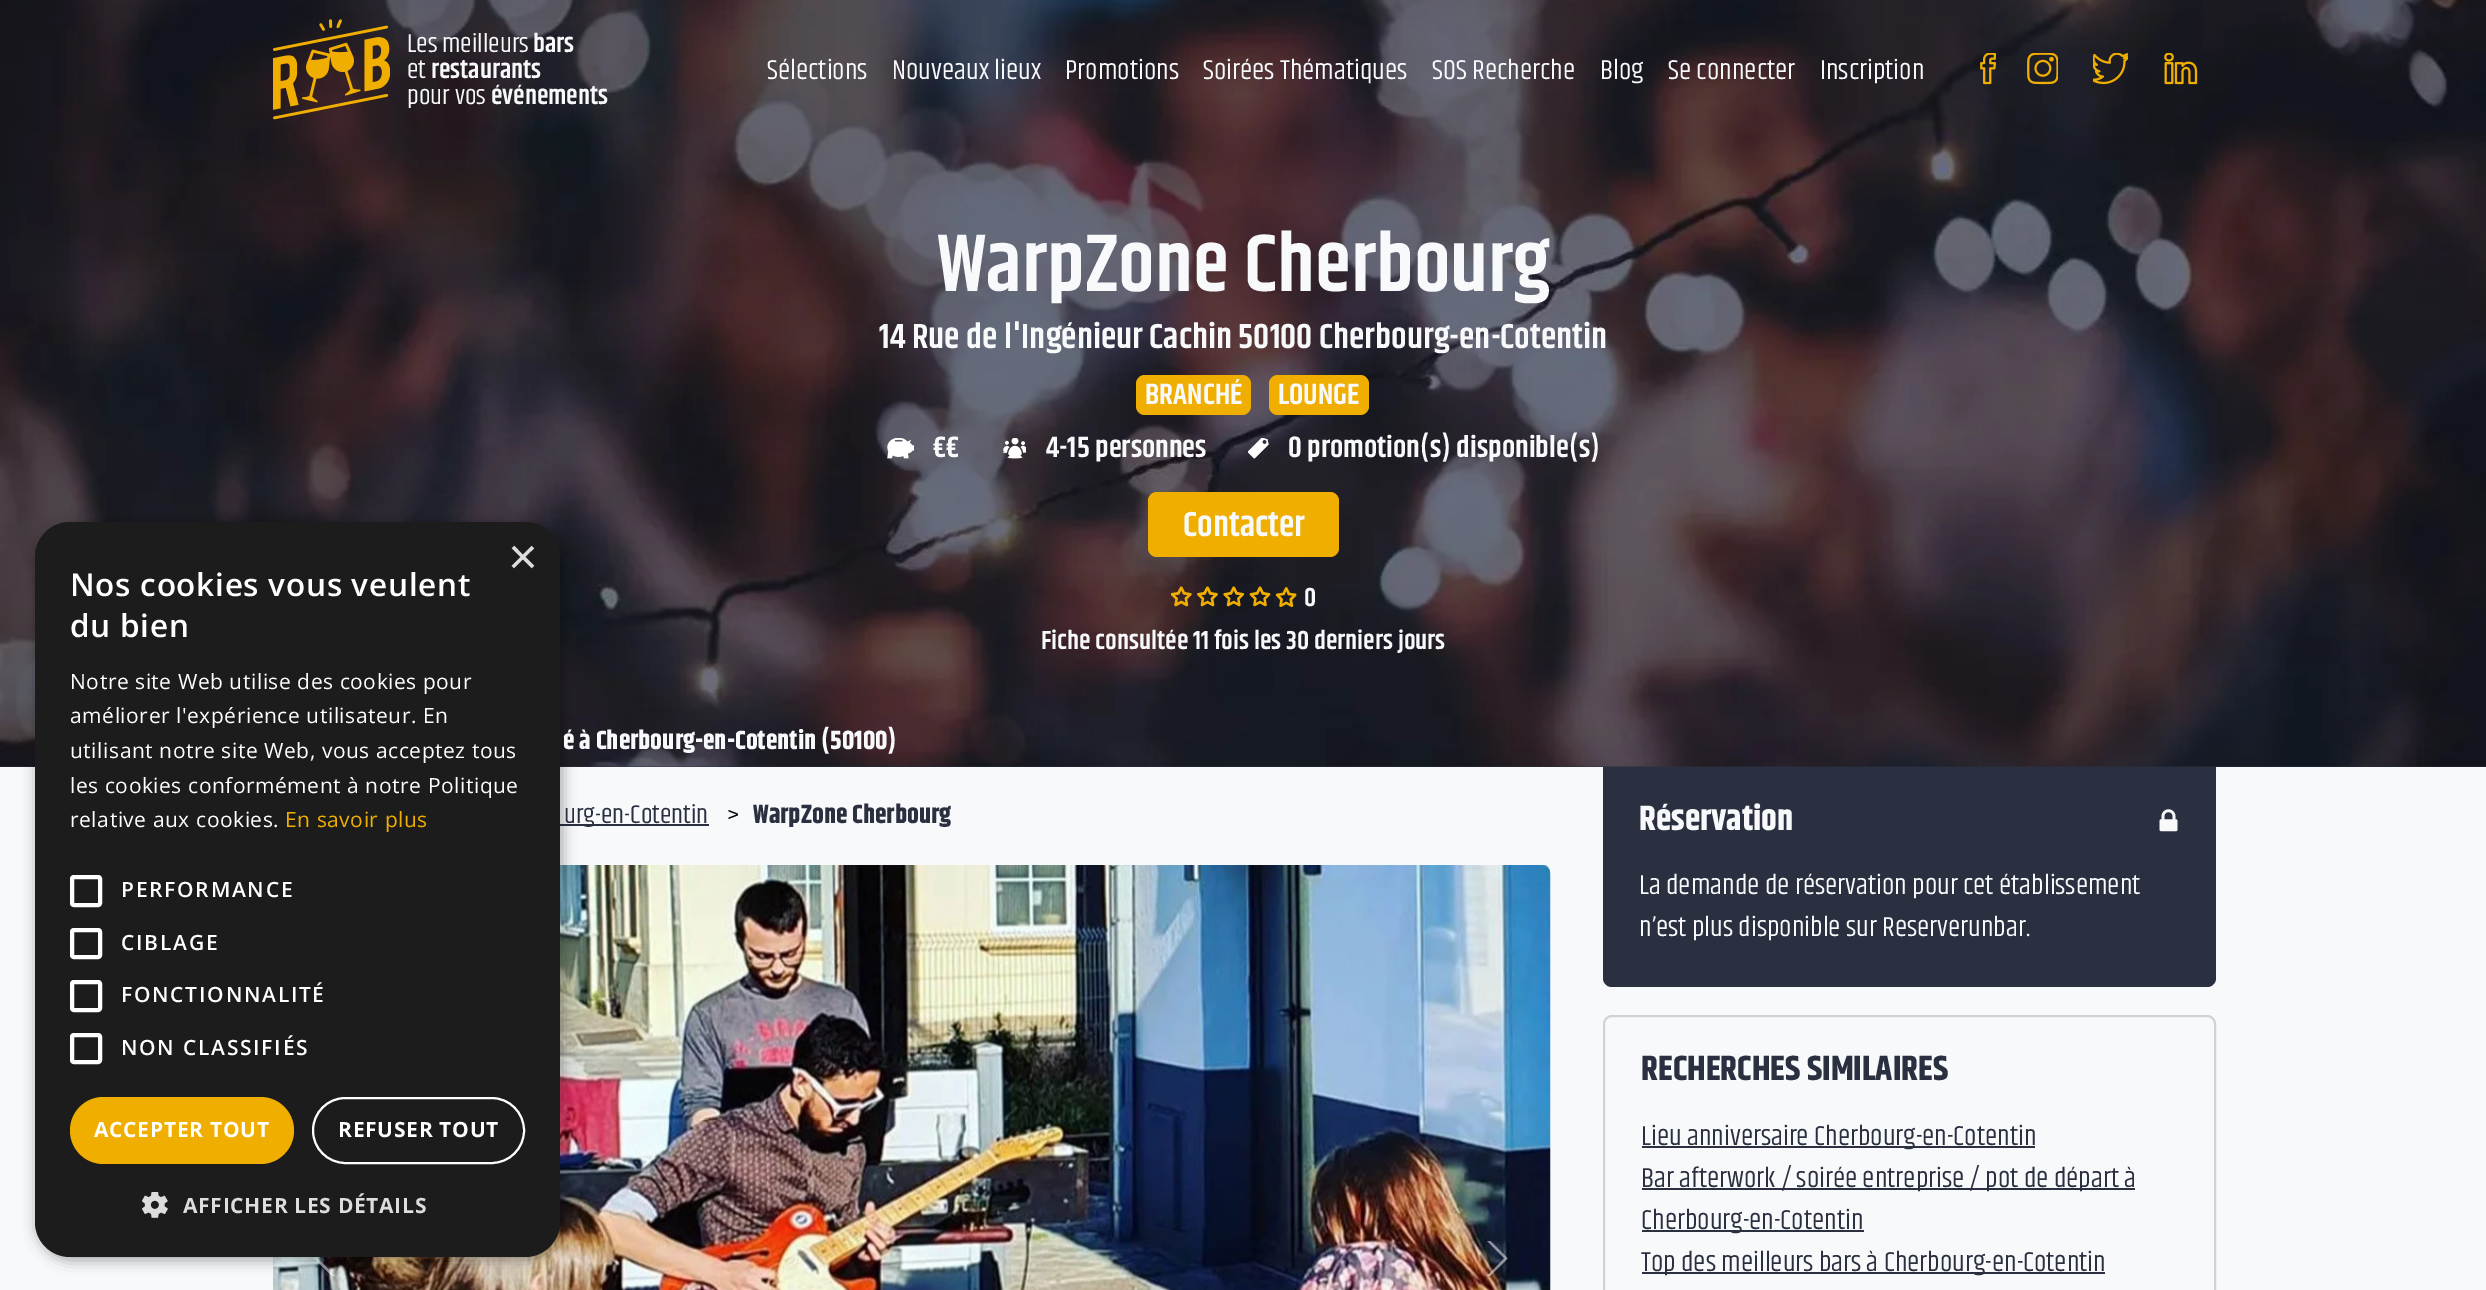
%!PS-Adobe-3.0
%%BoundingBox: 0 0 2486 1290
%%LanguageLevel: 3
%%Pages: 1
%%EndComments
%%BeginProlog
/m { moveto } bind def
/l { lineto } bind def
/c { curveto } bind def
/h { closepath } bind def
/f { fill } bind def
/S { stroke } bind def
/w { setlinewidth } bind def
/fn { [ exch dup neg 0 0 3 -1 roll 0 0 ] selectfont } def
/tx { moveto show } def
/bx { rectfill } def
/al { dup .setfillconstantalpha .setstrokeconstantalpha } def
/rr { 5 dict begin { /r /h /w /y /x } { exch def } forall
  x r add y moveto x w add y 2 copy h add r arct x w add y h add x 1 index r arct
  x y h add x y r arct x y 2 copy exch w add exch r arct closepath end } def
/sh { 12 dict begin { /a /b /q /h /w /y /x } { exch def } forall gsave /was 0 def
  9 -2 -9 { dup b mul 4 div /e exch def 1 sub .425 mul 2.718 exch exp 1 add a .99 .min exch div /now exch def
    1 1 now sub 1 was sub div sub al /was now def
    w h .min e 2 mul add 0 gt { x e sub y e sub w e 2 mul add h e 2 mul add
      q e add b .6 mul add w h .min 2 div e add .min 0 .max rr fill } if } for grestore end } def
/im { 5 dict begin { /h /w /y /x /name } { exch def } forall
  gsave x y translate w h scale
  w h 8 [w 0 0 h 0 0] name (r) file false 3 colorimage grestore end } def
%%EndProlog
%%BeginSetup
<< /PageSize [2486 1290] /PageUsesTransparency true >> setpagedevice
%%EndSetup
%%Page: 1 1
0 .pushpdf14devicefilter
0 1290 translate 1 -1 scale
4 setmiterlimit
0.165 0.188 0.251 setrgbcolor
0 0 2486 1290 bx
(image0.raw) 0 0 2486 767 im
(image1.raw) 273 19 117 101 im
/Khand-Regular 26.25 fn
0.969 0.976 0.984 setrgbcolor
(Les meilleurs) 407 52 tx
/Khand-SemiBold 26.25 fn
(bars) 533 52 tx
/Khand-Regular 26.25 fn
(et) 407 78 tx
/Khand-SemiBold 26.25 fn
(restaurants) 431 78 tx
/Khand-Regular 26.25 fn
(pour vos) 407 104 tx
/Khand-SemiBold 26.25 fn
(événements) 491 104 tx
/Khand-Regular 28 fn
(Sélections) 767 79 tx
(Nouveaux lieux) 892 79 tx
(Promotions) 1065 79 tx
(Soirées Thématiques) 1203 79 tx
(SOS Recherche) 1432 79 tx
(Blog) 1600 79 tx
(Se connecter) 1668 79 tx
(Inscription) 1820 79 tx
(image2.raw) 1980 53 16 32 im
(image3.raw) 2027 53 31 32 im
(image4.raw) 2093 53 35 32 im
(image5.raw) 2164 53 34 32 im
/Khand-SemiBold 82.25 fn
(WarpZone Cherbourg) 937 291 tx
/Khand-SemiBold 35 fn
(14 Rue de l'Ingénieur Cachin 50100 Cherbourg-en-Cotentin) 879 348 tx
0.941 0.682 0 setrgbcolor
1136 375 115 40 9 rr f
/Khand-SemiBold 29.75 fn
0.969 0.976 0.984 setrgbcolor
(BRANCHÉ) 1145 404 tx
0.941 0.682 0 setrgbcolor
1269 375 100 40 9 rr f
0.969 0.976 0.984 setrgbcolor
(LOUNGE) 1278 404 tx
(image6.raw) 887 438 27 21 im
(€€) 933 457 tx
(image7.raw) 1003 438 23 21 im
(4-15 personnes) 1046 457 tx
(image8.raw) 1248 438 21 21 im
(0 promotion\(s\) disponible\(s\)) 1288 457 tx
0.941 0.682 0 setrgbcolor
1148 492 191 65 9 rr f
/Khand-SemiBold 35 fn
0.969 0.976 0.984 setrgbcolor
(Contacter) 1183 536 tx
(image9.raw) 1171 586 126 21 im
/Khand-SemiBold 26.25 fn
(0) 1304 606 tx
(Fiche consultée 11 fois les 30 derniers jours) 1041 649 tx
0 767 2486 523 bx
0.165 0.188 0.251 setrgbcolor
560 824 149 2 bx
(image11.raw) 273 865 1278 425 im
(image12.raw) 314 1257 21 19 im
0 setgray
37 525 525 735 35 7 0.35 sh
0.11 setgray
35 522 525 735 35 rr f
/LiberationSans-Regular 51 fn
0.867 setgray
(×) 508 574 tx
/OpenSans-SemiBold 31.5 fn
1 setgray
70 596 m 0.7 0 (Nos cookies vous veulent) ashow
70 637 m 0.7 0 (du bien) ashow
/OpenSans-Regular 21 fn
70 689 m 0.55 0 (Notre site Web utilise des cookies pour) ashow
70 723 m 0.55 0 (améliorer l'expérience utilisateur. En) ashow
70 758 m 0.55 0 (utilisant notre site Web, vous acceptez tous) ashow
70 793 m 0.55 0 (les cookies conformément à notre Politique) ashow
70 827 m 0.55 0 (relative aux cookies.) ashow
0.941 0.682 0 setrgbcolor
285 827 m 0.55 0 (En savoir plus) ashow
1 setgray
4 w
72 877 28 28 2 rr S
/OpenSans-SemiBold 21 fn
121 897 m 1.75 0 (PERFORMANCE) ashow
72 930 28 27 2 rr S
121 950 m 1.75 0 (CIBLAGE) ashow
72 982 28 28 2 rr S
121 1002 m 1.75 0 (FONCTIONNALITÉ) ashow
72 1035 28 27 2 rr S
121 1055 m 1.75 0 (NON CLASSIFIÉS) ashow
0.941 0.682 0 setrgbcolor
70 1097 224 67 33.5 rr f
/OpenSans-Bold 21 fn
1 setgray
94 1137 m 0.7 0 (ACCEPTER TOUT) ashow
2 w
313 1098 211 65 32.5 rr S
338 1137 m 0.7 0 (REFUSER TOUT) ashow
(image10.raw) 142 1192 26 26 im
0.867 setgray
183 1213 m 0.7 0 (AFFICHER LES DÉTAILS) ashow
/Khand-Bold 26.25 fn
0.969 0.976 0.984 setrgbcolor
(é à Cherbourg-en-Cotentin \(50100\)) 563 749 tx
/Khand-Regular 26.25 fn
0.165 0.188 0.251 setrgbcolor
(urg-en-Cotentin) 564 823 tx
0 setgray
(>) 727 823 tx
/Khand-Bold 26.25 fn
0.165 0.188 0.251 setrgbcolor
(WarpZone Cherbourg) 753 823 tx
(image13.raw) 1486 1241 22 35 im
1603 767 m 2216 767 l 2216 978 l 2216 983 2212 987 2207 987 c 1612 987 l 1607 987 1603 983 1603 978 c h f
/Khand-Bold 35 fn
0.969 0.976 0.984 setrgbcolor
(Réservation) 1639 830 tx
(image14.raw) 2159 809 19 23 im
/Khand-Regular 28 fn
(La demande de réservation pour cet établissement) 1639 894 tx
(n’est plus disponible sur Reserverunbar.) 1639 936 tx
0.824 setgray
1604 1016 611 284 8 rr S
/Khand-Bold 35 fn
0.165 0.188 0.251 setrgbcolor
(RECHERCHES SIMILAIRES) 1641 1080 tx
1642 1146 393 2 bx
/Khand-Regular 28 fn
(Lieu anniversaire Cherbourg-en-Cotentin) 1641 1145 tx
1642 1188 493 2 bx
(Bar afterwork / soirée entreprise / pot de départ à) 1641 1187 tx
1642 1230 222 2 bx
(Cherbourg-en-Cotentin) 1641 1229 tx
1642 1272 463 2 bx
(Top des meilleurs bars à Cherbourg-en-Cotentin) 1641 1271 tx
.poppdf14devicefilter showpage
%%EOF
